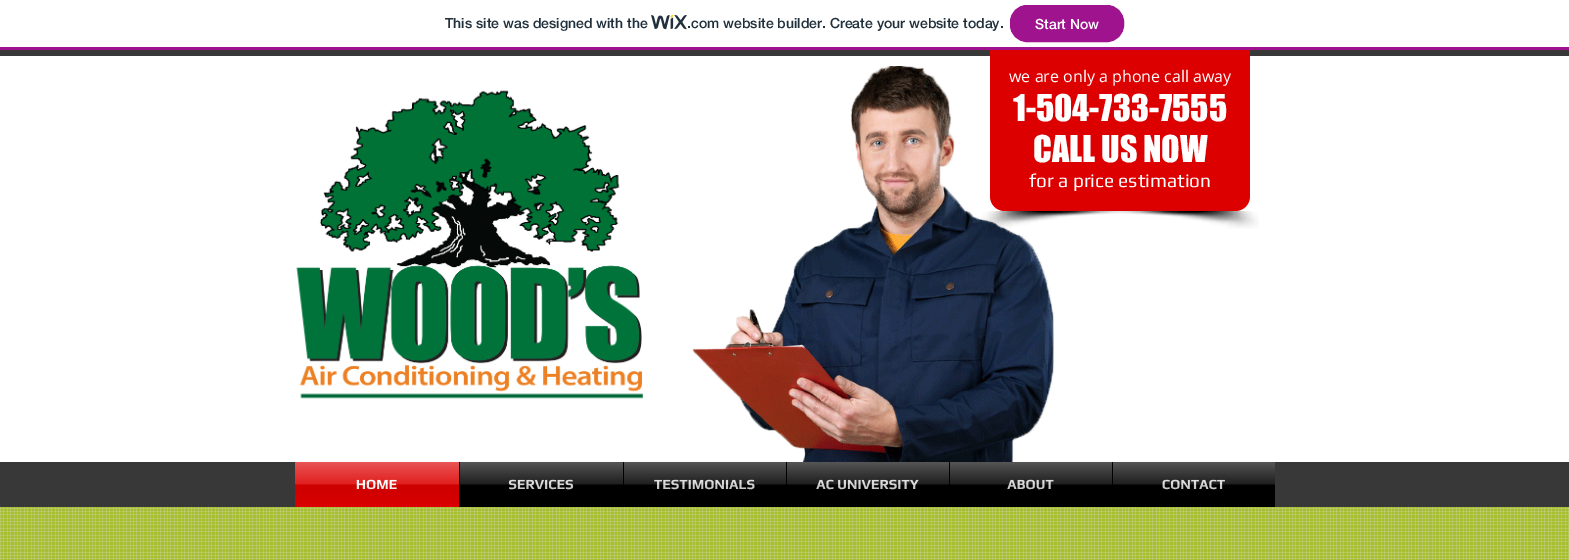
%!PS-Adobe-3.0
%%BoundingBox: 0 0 1569 560
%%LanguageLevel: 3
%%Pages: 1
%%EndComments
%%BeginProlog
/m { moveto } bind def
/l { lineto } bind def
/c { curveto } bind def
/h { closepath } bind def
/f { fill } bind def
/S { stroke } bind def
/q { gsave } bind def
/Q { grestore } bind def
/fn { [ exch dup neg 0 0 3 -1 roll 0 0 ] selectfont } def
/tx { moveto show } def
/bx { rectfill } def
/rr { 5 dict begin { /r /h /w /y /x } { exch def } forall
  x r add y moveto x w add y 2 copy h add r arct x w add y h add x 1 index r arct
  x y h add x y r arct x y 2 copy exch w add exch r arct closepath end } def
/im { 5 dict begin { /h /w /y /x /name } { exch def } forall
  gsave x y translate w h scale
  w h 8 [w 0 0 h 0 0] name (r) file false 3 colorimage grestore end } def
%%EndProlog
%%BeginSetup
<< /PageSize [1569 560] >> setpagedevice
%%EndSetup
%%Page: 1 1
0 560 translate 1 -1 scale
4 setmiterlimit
1 setgray
0 0 1569 560 bx
0.627 0.075 0.557 setrgbcolor
0 47 1569 3 bx
/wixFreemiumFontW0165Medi-Medium 14 fn
0.125 0.188 0.235 setrgbcolor
(This site was designed with the) 445 28 tx
(image0.raw) 651 15 36 15 im
(.com website builder. Create your website today.) 687 28 tx
0.627 0.075 0.557 setrgbcolor
1010.5 5.5 113 36 16.5 rr q f Q
S
1 setgray
(Start Now) 1035 29 tx
0.22 setgray
0 50 1569 6 bx
(image1.raw) 692 66 362 396 im
0 462 1569 45 bx
0.867 0 0 setrgbcolor
990 50 m 1250 50 l 1250 196 l 1250 204.5 1243.5 211 1235 211 c 1005 211 l 996.5 211 990 204.5 990 196 c h f
/OpenSans-Regular 16 fn
1 setgray
(we are only a phone call away) 1009 82 tx
/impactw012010-Regular 34 fn
(1-504-733-7555) 1013 121 tx
(CALL US NOW) 1033 162 tx
/Play-Regular 19 fn
(for a price estimation) 1029 187 tx
(image2.raw) 981 211 154 17 im
(image3.raw) 1105 211 154 18 im
0.867 0 0 setrgbcolor
295 462 164 45 bx
/Play-Bold 14 fn
1 setgray
(HOME) 356 489 tx
(image4.raw) 295 462 164 43 im
0 setgray
459 462 816 45 bx
0.851 setgray
(SERVICES) 508 489 tx
(image5.raw) 460 462 163 27 im
(TESTIMONIALS) 654 489 tx
(image6.raw) 624 462 162 27 im
(AC UNIVERSITY) 816 489 tx
(image7.raw) 787 462 162 27 im
(ABOUT) 1007 489 tx
(image8.raw) 950 462 162 27 im
(CONTACT) 1162 489 tx
(image9.raw) 1113 462 162 27 im
(image10.raw) 296 90 347 309 im
0.655 0.749 0.184 setrgbcolor
0 507 1569 53 bx
(image11.raw) 0 507 1569 53 im
showpage
%%EOF
